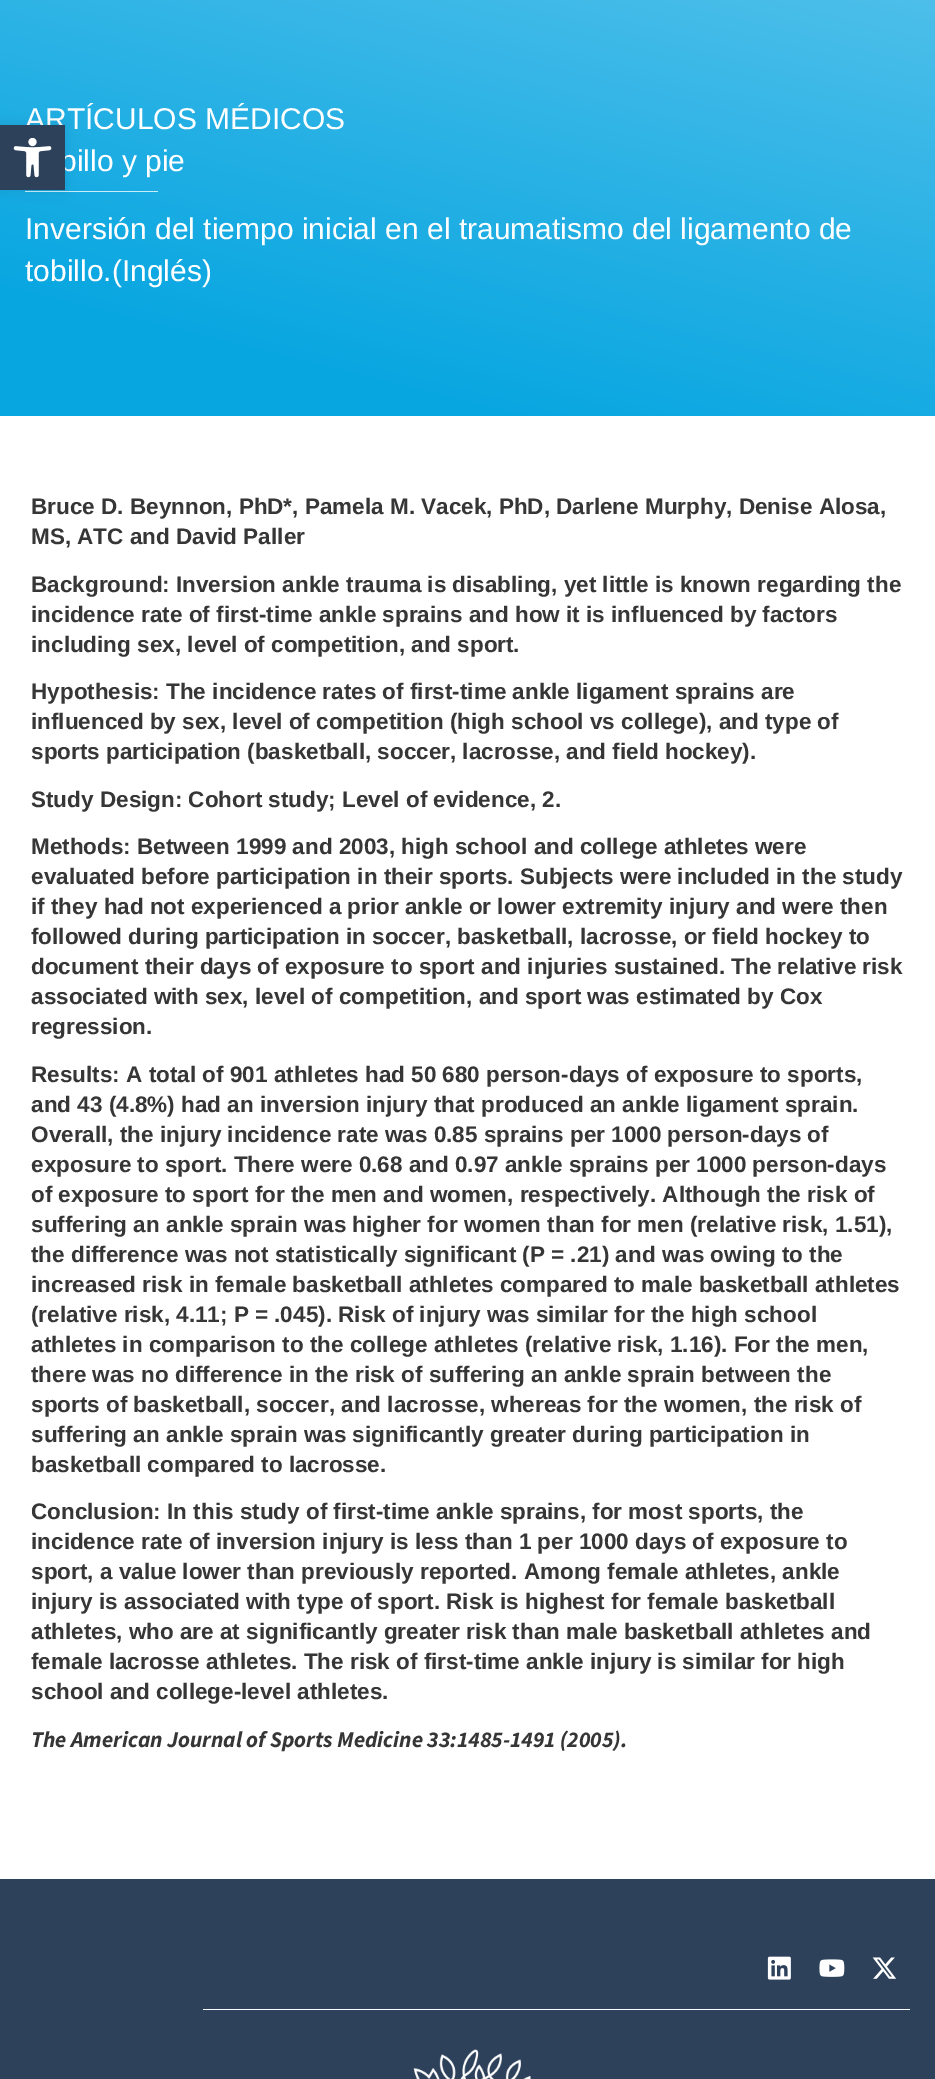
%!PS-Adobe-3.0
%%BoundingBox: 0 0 935 2079
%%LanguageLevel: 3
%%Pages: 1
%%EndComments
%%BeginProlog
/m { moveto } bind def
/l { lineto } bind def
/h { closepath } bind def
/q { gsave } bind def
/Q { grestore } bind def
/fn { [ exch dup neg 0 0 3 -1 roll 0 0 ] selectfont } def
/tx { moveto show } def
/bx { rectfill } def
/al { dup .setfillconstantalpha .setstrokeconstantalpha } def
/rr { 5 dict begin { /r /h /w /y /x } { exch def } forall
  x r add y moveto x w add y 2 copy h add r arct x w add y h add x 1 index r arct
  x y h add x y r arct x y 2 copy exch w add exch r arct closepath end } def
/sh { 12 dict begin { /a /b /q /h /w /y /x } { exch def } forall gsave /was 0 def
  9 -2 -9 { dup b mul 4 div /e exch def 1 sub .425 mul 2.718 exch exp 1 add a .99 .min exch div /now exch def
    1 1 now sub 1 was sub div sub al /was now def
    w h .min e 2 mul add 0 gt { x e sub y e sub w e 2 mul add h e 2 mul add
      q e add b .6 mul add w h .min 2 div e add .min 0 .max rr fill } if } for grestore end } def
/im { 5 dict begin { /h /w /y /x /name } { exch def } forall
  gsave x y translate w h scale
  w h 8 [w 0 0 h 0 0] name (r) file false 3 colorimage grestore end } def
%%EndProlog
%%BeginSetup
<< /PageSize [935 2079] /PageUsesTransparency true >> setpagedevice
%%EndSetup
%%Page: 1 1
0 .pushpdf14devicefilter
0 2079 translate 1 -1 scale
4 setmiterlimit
1 setgray
0 0 935 2079 bx
q 0 0 m 935 0 l 935 416 l 0 416 l h clip newpath
<< /ShadingType 2 /ColorSpace /DeviceRGB /Coords [389 513 546 -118] /Extend [true true] /Function << /FunctionType 3 /Domain [0 1] /Functions [<< /FunctionType 2 /Domain [0 1] /C0 [0.031 0.651 0.882] /C1 [0.031 0.651 0.882] /N 1 >> << /FunctionType 2 /Domain [0 1] /C0 [0.031 0.651 0.882] /C1 [0.314 0.753 0.918] /N 1 >>] /Bounds [0.19] /Encode [0 1 0 1] >> >> shfill Q
/LiberationSans-Regular 30 fn
(ARTÍCULOS MÉDICOS) 25 129 tx
(billo y pie) 60 171 tx
0.788 0.929 0.969 setrgbcolor
25 191 133 1 bx
1 setgray
(Inversión del tiempo inicial en el traumatismo del ligamento de) 25 239 tx
(tobillo.\(Inglés\)) 25 281 tx
/LiberationSans-Bold 22.5 fn
0.212 setgray
(Bruce D. Beynnon, PhD*, Pamela M. Vacek, PhD, Darlene Murphy, Denise Alosa,) 31 514 tx
(MS, ATC and David Paller) 31 544 tx
(Background: Inversion ankle trauma is disabling, yet little is known regarding the) 31 592 tx
(incidence rate of first-time ankle sprains and how it is influenced by factors) 31 622 tx
(including sex, level of competition, and sport.) 31 652 tx
(Hypothesis: The incidence rates of first-time ankle ligament sprains are) 31 699 tx
(influenced by sex, level of competition \(high school vs college\), and type of) 31 729 tx
(sports participation \(basketball, soccer, lacrosse, and field hockey\).) 31 759 tx
(Study Design: Cohort study; Level of evidence, 2.) 31 807 tx
(Methods: Between 1999 and 2003, high school and college athletes were) 31 854 tx
(evaluated before participation in their sports. Subjects were included in the study) 31 884 tx
(if they had not experienced a prior ankle or lower extremity injury and were then) 31 914 tx
(followed during participation in soccer, basketball, lacrosse, or field hockey to) 31 944 tx
(document their days of exposure to sport and injuries sustained. The relative risk) 31 974 tx
(associated with sex, level of competition, and sport was estimated by Cox) 31 1004 tx
(regression.) 31 1034 tx
(Results: A total of 901 athletes had 50 680 person-days of exposure to sports,) 31 1082 tx
(and 43 \(4.8%\) had an inversion injury that produced an ankle ligament sprain.) 31 1112 tx
(Overall, the injury incidence rate was 0.85 sprains per 1000 person-days of) 31 1142 tx
(exposure to sport. There were 0.68 and 0.97 ankle sprains per 1000 person-days) 31 1172 tx
(of exposure to sport for the men and women, respectively. Although the risk of) 31 1202 tx
(suffering an ankle sprain was higher for women than for men \(relative risk, 1.51\),) 31 1232 tx
(the difference was not statistically significant \(P = .21\) and was owing to the) 31 1262 tx
(increased risk in female basketball athletes compared to male basketball athletes) 31 1292 tx
(\(relative risk, 4.11; P = .045\). Risk of injury was similar for the high school) 31 1322 tx
(athletes in comparison to the college athletes \(relative risk, 1.16\). For the men,) 31 1352 tx
(there was no difference in the risk of suffering an ankle sprain between the) 31 1382 tx
(sports of basketball, soccer, and lacrosse, whereas for the women, the risk of) 31 1412 tx
(suffering an ankle sprain was significantly greater during participation in) 31 1442 tx
(basketball compared to lacrosse.) 31 1472 tx
(Conclusion: In this study of first-time ankle sprains, for most sports, the) 31 1519 tx
(incidence rate of inversion injury is less than 1 per 1000 days of exposure to) 31 1549 tx
(sport, a value lower than previously reported. Among female athletes, ankle) 31 1579 tx
(injury is associated with type of sport. Risk is highest for female basketball) 31 1609 tx
(athletes, who are at significantly greater risk than male basketball athletes and) 31 1639 tx
(female lacrosse athletes. The risk of first-time ankle injury is similar for high) 31 1669 tx
(school and college-level athletes.) 31 1699 tx
/SourceSans3-BoldItalic 22.5 fn
(The American Journal of Sports Medicine 33:1485-1491 \(2005\).) 31 1747 tx
0 setgray
0 125 65 65 0 6 0.1 sh
0.176 0.255 0.353 setrgbcolor
0 125 65 65 bx
(image0.raw) 13 138 39 40 im
0 1879 935 200 bx
(image1.raw) 767 1956 24 24 im
(image2.raw) 819 1959 26 18 im
(image3.raw) 872 1957 25 22 im
1 setgray
203 2009 707 1 bx
(image4.raw) 413 2049 118 30 im
.poppdf14devicefilter showpage
%%EOF
